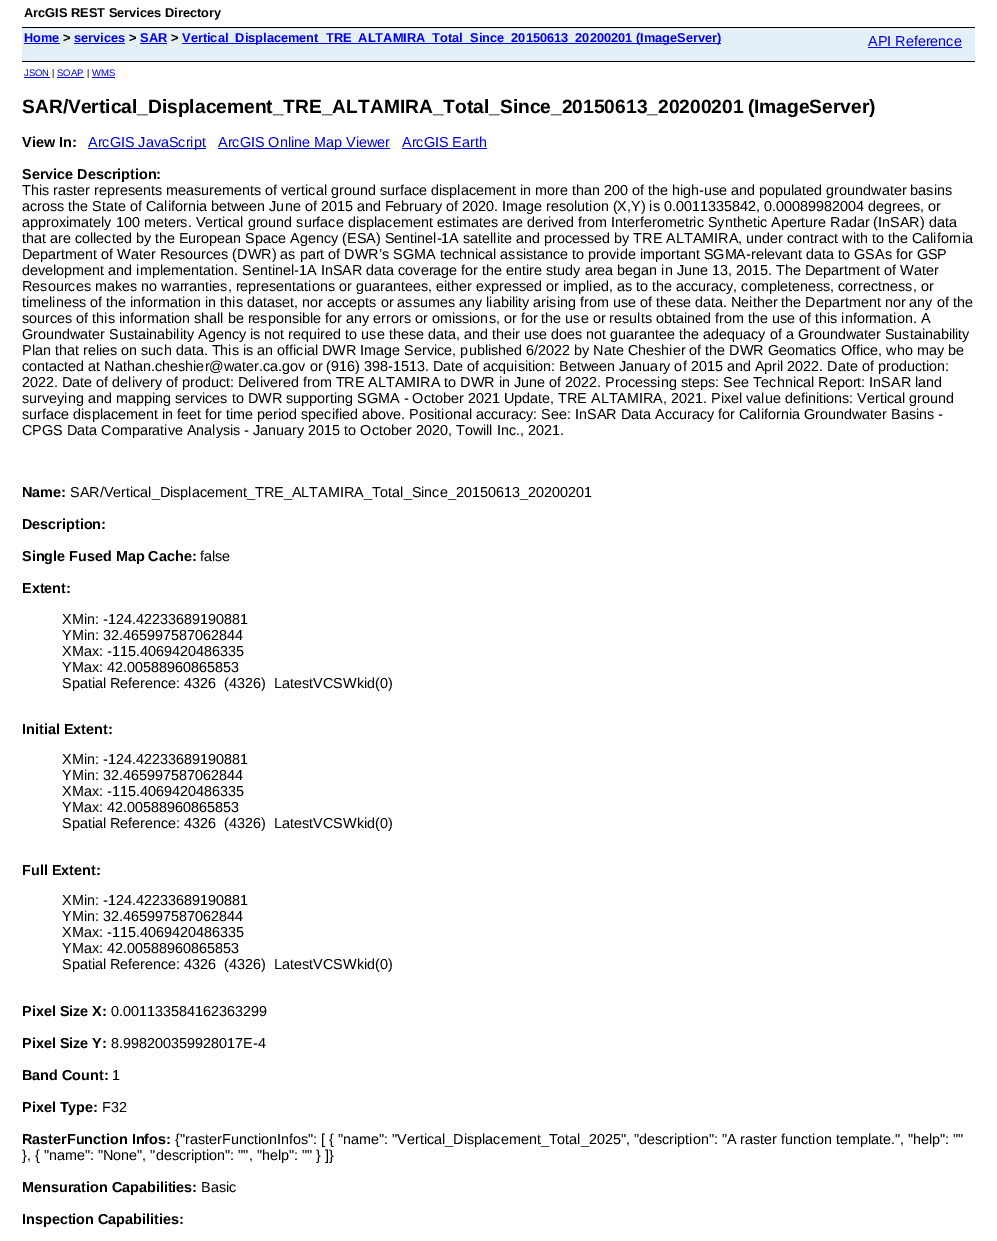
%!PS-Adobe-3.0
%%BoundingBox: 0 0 997 1241
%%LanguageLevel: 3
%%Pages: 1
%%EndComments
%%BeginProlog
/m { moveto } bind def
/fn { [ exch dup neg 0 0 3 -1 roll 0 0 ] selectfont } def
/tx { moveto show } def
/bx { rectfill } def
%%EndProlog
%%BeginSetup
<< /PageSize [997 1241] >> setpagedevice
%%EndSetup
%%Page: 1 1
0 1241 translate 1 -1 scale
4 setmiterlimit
1 setgray
0 0 997 1241 bx
/LiberationSans-Bold 12.8 fn
0 setgray
(ArcGIS REST Services Directory) 24 17 tx
0.898 0.937 0.969 setrgbcolor
22 28 953 33 bx
0 setgray
22 27 953 1 bx
22 61 953 1 bx
0 0 0.933 setrgbcolor
(Home) 24 42 tx
24 43 36 1 bx
0 setgray
(>) 63 42 tx
0 0 0.933 setrgbcolor
(services) 74 42 tx
74 43 51 1 bx
0 setgray
(>) 129 42 tx
0 0 0.933 setrgbcolor
(SAR) 140 42 tx
140 43 27 1 bx
0 setgray
(>) 171 42 tx
0 0 0.933 setrgbcolor
182 43 539 1 bx
(Vertical_Displacement_TRE_ALTAMIRA_Total_Since_20150613_20200201 \(ImageServer\)) 182 42 tx
/LiberationSans-Regular 14.4 fn
(API Reference) 868 46 tx
868 47 94 1 bx
/LiberationSans-Regular 9.5 fn
(JSON) 24 76 tx
24 77 26 1 bx
0 setgray
(|) 52 76 tx
0 0 0.933 setrgbcolor
(SOAP) 57 76 tx
57 77 27 1 bx
0 setgray
(|) 87 76 tx
0 0 0.933 setrgbcolor
(WMS) 92 76 tx
92 77 23 1 bx
/LiberationSans-Bold 19.2 fn
0 setgray
22 113 m -1 0 32 (SAR/Vertical_Displacement_TRE_ALTAMIRA_Total_Since_20150613_20200201 \(ImageServer\)) widthshow
/LiberationSans-Bold 14.4 fn
(View In:) 22 147 tx
0 0 0.933 setrgbcolor
88 148 118 1 bx
/LiberationSans-Regular 14.4 fn
(ArcGIS JavaScript) 88 147 tx
218 148 172 1 bx
(ArcGIS Online Map Viewer) 218 147 tx
(ArcGIS Earth) 402 147 tx
402 148 85 1 bx
/LiberationSans-Bold 14.4 fn
0 setgray
(Service Description:) 22 179 tx
/LiberationSans-Regular 14.4 fn
(This raster represents measurements of vertical ground surface displacement in more than 200 of the high-use and populated groundwater basins) 22 195 tx
(across the State of California between June of 2015 and February of 2020. Image resolution \(X,Y\) is 0.0011335842, 0.00089982004 degrees, or) 22 211 tx
(approximately 100 meters. Vertical ground surface displacement estimates are derived from Interferometric Synthetic Aperture Radar \(InSAR\) data) 22 227 tx
(that are collected by the European Space Agency \(ESA\) Sentinel-1A satellite and processed by TRE ALTAMIRA, under contract with to the California) 22 243 tx
(Department of Water Resources \(DWR\) as part of DWR’s SGMA technical assistance to provide important SGMA-relevant data to GSAs for GSP) 22 259 tx
(development and implementation. Sentinel-1A InSAR data coverage for the entire study area began in June 13, 2015. The Department of Water) 22 275 tx
(Resources makes no warranties, representations or guarantees, either expressed or implied, as to the accuracy, completeness, correctness, or) 22 291 tx
(timeliness of the information in this dataset, nor accepts or assumes any liability arising from use of these data. Neither the Department nor any of the) 22 307 tx
(sources of this information shall be responsible for any errors or omissions, or for the use or results obtained from the use of this information. A) 22 323 tx
(Groundwater Sustainability Agency is not required to use these data, and their use does not guarantee the adequacy of a Groundwater Sustainability) 22 339 tx
(Plan that relies on such data. This is an official DWR Image Service, published 6/2022 by Nate Cheshier of the DWR Geomatics Office, who may be) 22 355 tx
(contacted at Nathan.cheshier@water.ca.gov or \(916\) 398-1513. Date of acquisition: Between January of 2015 and April 2022. Date of production:) 22 371 tx
(2022. Date of delivery of product: Delivered from TRE ALTAMIRA to DWR in June of 2022. Processing steps: See Technical Report: InSAR land) 22 387 tx
(surveying and mapping services to DWR supporting SGMA - October 2021 Update, TRE ALTAMIRA, 2021. Pixel value definitions: Vertical ground) 22 403 tx
(surface displacement in feet for time period specified above. Positional accuracy: See: InSAR Data Accuracy for California Groundwater Basins -) 22 419 tx
(CPGS Data Comparative Analysis - January 2015 to October 2020, Towill Inc., 2021.) 22 435 tx
/LiberationSans-Bold 14.4 fn
(Name:) 22 497 tx
/LiberationSans-Regular 14.4 fn
(SAR/Vertical_Displacement_TRE_ALTAMIRA_Total_Since_20150613_20200201) 70 497 tx
/LiberationSans-Bold 14.4 fn
(Description:) 22 529 tx
(Single Fused Map Cache:) 22 561 tx
/LiberationSans-Regular 14.4 fn
(false) 200 561 tx
/LiberationSans-Bold 14.4 fn
(Extent:) 22 593 tx
/LiberationSans-Regular 14.4 fn
(XMin: -124.42233689190881) 62 624 tx
(YMin: 32.465997587062844) 62 640 tx
(XMax: -115.4069420486335) 62 656 tx
(YMax: 42.00588960865853) 62 672 tx
(Spatial Reference: 4326  \(4326\)  LatestVCSWkid\(0\)) 62 688 tx
/LiberationSans-Bold 14.4 fn
(Initial Extent:) 22 734 tx
/LiberationSans-Regular 14.4 fn
(XMin: -124.42233689190881) 62 764 tx
(YMin: 32.465997587062844) 62 780 tx
(XMax: -115.4069420486335) 62 796 tx
(YMax: 42.00588960865853) 62 812 tx
(Spatial Reference: 4326  \(4326\)  LatestVCSWkid\(0\)) 62 828 tx
/LiberationSans-Bold 14.4 fn
(Full Extent:) 22 875 tx
/LiberationSans-Regular 14.4 fn
(XMin: -124.42233689190881) 62 905 tx
(YMin: 32.465997587062844) 62 921 tx
(XMax: -115.4069420486335) 62 937 tx
(YMax: 42.00588960865853) 62 953 tx
(Spatial Reference: 4326  \(4326\)  LatestVCSWkid\(0\)) 62 969 tx
/LiberationSans-Bold 14.4 fn
(Pixel Size X:) 22 1016 tx
/LiberationSans-Regular 14.4 fn
(0.001133584162363299) 111 1016 tx
/LiberationSans-Bold 14.4 fn
(Pixel Size Y:) 22 1048 tx
/LiberationSans-Regular 14.4 fn
(8.998200359928017E-4) 111 1048 tx
/LiberationSans-Bold 14.4 fn
(Band Count:) 22 1080 tx
/LiberationSans-Regular 14.4 fn
(1) 112 1080 tx
/LiberationSans-Bold 14.4 fn
(Pixel Type:) 22 1112 tx
/LiberationSans-Regular 14.4 fn
(F32) 102 1112 tx
/LiberationSans-Bold 14.4 fn
(RasterFunction Infos:) 22 1144 tx
/LiberationSans-Regular 14.4 fn
({"rasterFunctionInfos": [ { "name": "Vertical_Displacement_Total_2025", "description": "A raster function template.", "help": "") 175 1144 tx
(}, { "name": "None", "description": "", "help": "" } ]}) 22 1160 tx
/LiberationSans-Bold 14.4 fn
(Mensuration Capabilities:) 22 1192 tx
/LiberationSans-Regular 14.4 fn
(Basic) 201 1192 tx
/LiberationSans-Bold 14.4 fn
(Inspection Capabilities:) 22 1224 tx
showpage
%%EOF
